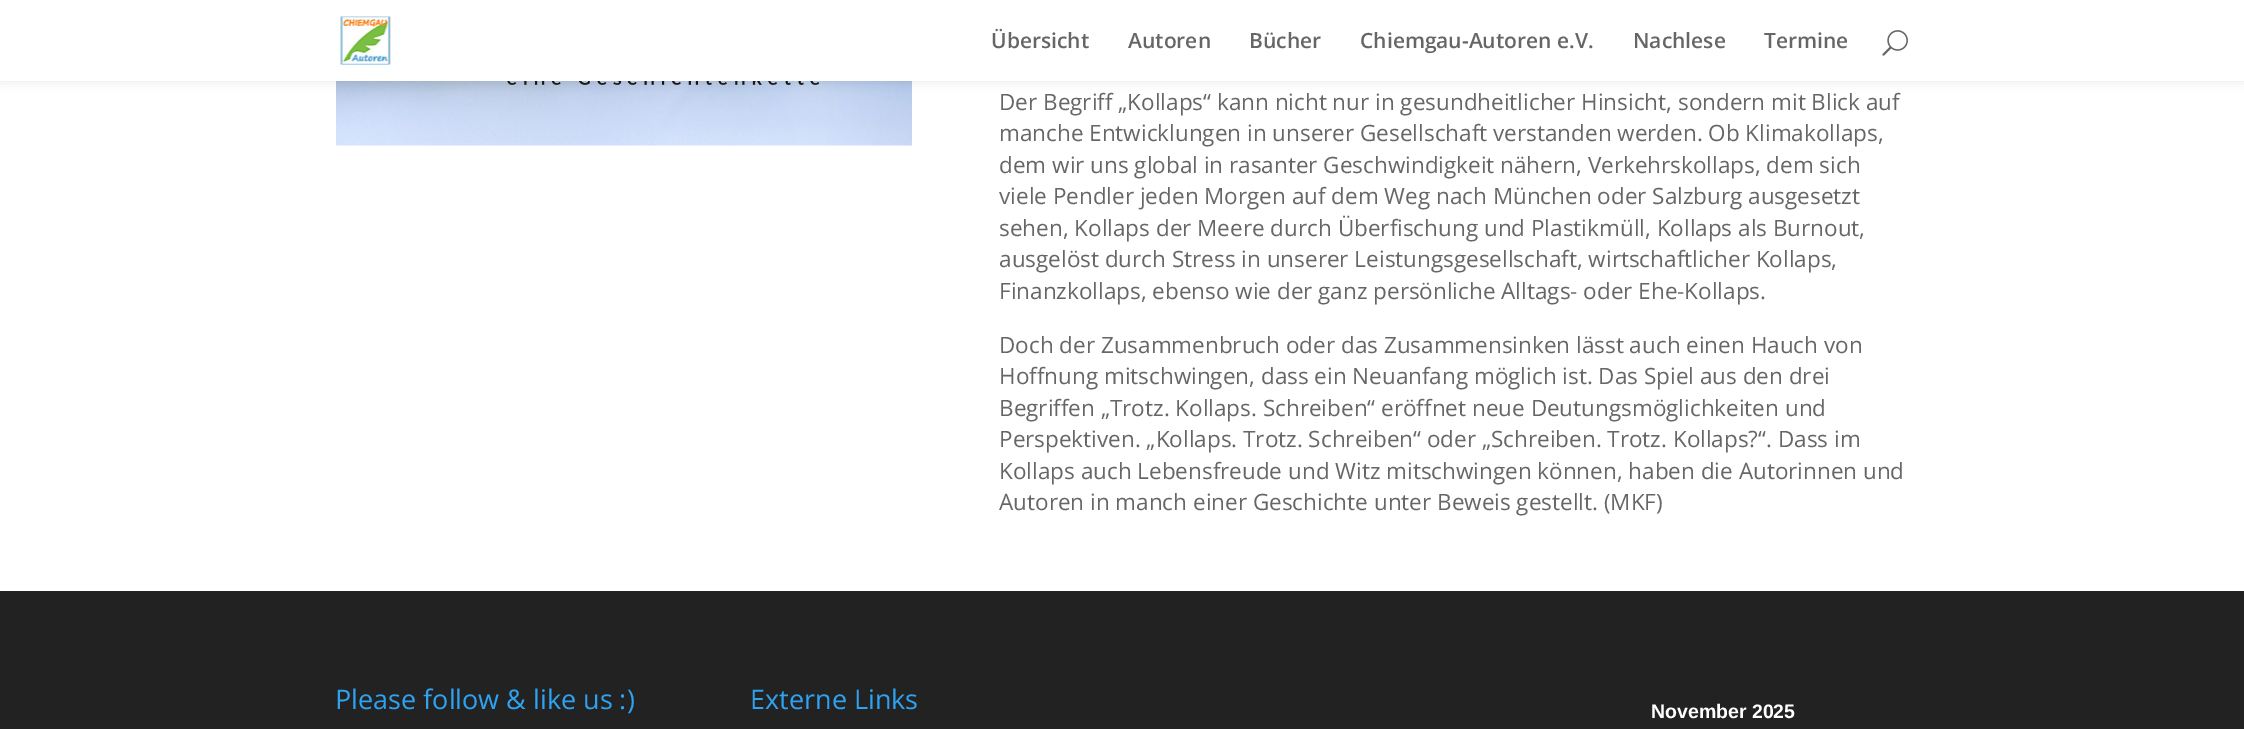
%!PS-Adobe-3.0
%%BoundingBox: 0 0 2244 729
%%LanguageLevel: 3
%%Pages: 1
%%EndComments
%%BeginProlog
/fn { [ exch dup neg 0 0 3 -1 roll 0 0 ] selectfont } def
/tx { moveto show } def
/bx { rectfill } def
/al { dup .setfillconstantalpha .setstrokeconstantalpha } def
/rr { 5 dict begin { /r /h /w /y /x } { exch def } forall
  x r add y moveto x w add y 2 copy h add r arct x w add y h add x 1 index r arct
  x y h add x y r arct x y 2 copy exch w add exch r arct closepath end } def
/sh { 12 dict begin { /a /b /q /h /w /y /x } { exch def } forall gsave /was 0 def
  9 -2 -9 { dup b mul 4 div /e exch def 1 sub .425 mul 2.718 exch exp 1 add a .99 .min exch div /now exch def
    1 1 now sub 1 was sub div sub al /was now def
    w h .min e 2 mul add 0 gt { x e sub y e sub w e 2 mul add h e 2 mul add
      q e add b .6 mul add w h .min 2 div e add .min 0 .max rr fill } if } for grestore end } def
/im { 5 dict begin { /h /w /y /x /name } { exch def } forall
  gsave x y translate w h scale
  w h 8 [w 0 0 h 0 0] name (r) file false 3 colorimage grestore end } def
%%EndProlog
%%BeginSetup
<< /PageSize [2244 729] /PageUsesTransparency true >> setpagedevice
%%EndSetup
%%Page: 1 1
0 .pushpdf14devicefilter
0 729 translate 1 -1 scale
4 setmiterlimit
1 setgray
0 0 2244 729 bx
(image2.raw) 336 81 576 65 im
0 setgray
0 0 2244 81 0 5 0.1 sh
1 setgray
0 0 2244 81 bx
(image0.raw) 340 16 51 49 im
/OpenSans-SemiBold 21 fn
0.4 setgray
(Übersicht) 991 48 tx
(Autoren) 1128 48 tx
(Bücher) 1249 48 tx
(Chiemgau-Autoren e.V.) 1360 48 tx
(Nachlese) 1633 48 tx
(Termine) 1764 48 tx
(image1.raw) 1882 30 26 26 im
/OpenSans-Regular 22.5 fn
(Der Begriff „Kollaps“ kann nicht nur in gesundheitlicher Hinsicht, sondern mit Blick auf) 999 110 tx
(manche Entwicklungen in unserer Gesellschaft verstanden werden. Ob Klimakollaps,) 999 141 tx
(dem wir uns global in rasanter Geschwindigkeit nähern, Verkehrskollaps, dem sich) 999 173 tx
(viele Pendler jeden Morgen auf dem Weg nach München oder Salzburg ausgesetzt) 999 204 tx
(sehen, Kollaps der Meere durch Überfischung und Plastikmüll, Kollaps als Burnout,) 999 236 tx
(ausgelöst durch Stress in unserer Leistungsgesellschaft, wirtschaftlicher Kollaps,) 999 267 tx
(Finanzkollaps, ebenso wie der ganz persönliche Alltags- oder Ehe-Kollaps.) 999 299 tx
(Doch der Zusammenbruch oder das Zusammensinken lässt auch einen Hauch von) 999 353 tx
(Hoffnung mitschwingen, dass ein Neuanfang möglich ist. Das Spiel aus den drei) 999 384 tx
(Begriffen „Trotz. Kollaps. Schreiben“ eröffnet neue Deutungsmöglichkeiten und) 999 416 tx
(Perspektiven. „Kollaps. Trotz. Schreiben“ oder „Schreiben. Trotz. Kollaps?“. Dass im) 999 447 tx
(Kollaps auch Lebensfreude und Witz mitschwingen können, haben die Autorinnen und) 999 479 tx
(Autoren in manch einer Geschichte unter Beweis gestellt. \(MKF\)) 999 510 tx
0.133 setgray
0 591 2244 138 bx
/OpenSans-Regular 27 fn
0.18 0.639 0.949 setrgbcolor
(Please follow & like us :\)) 335 709 tx
(Externe Links) 750 709 tx
/LiberationSans-Bold 19.5 fn
1 setgray
(November 2025) 1651 718 tx
.poppdf14devicefilter showpage
%%EOF
